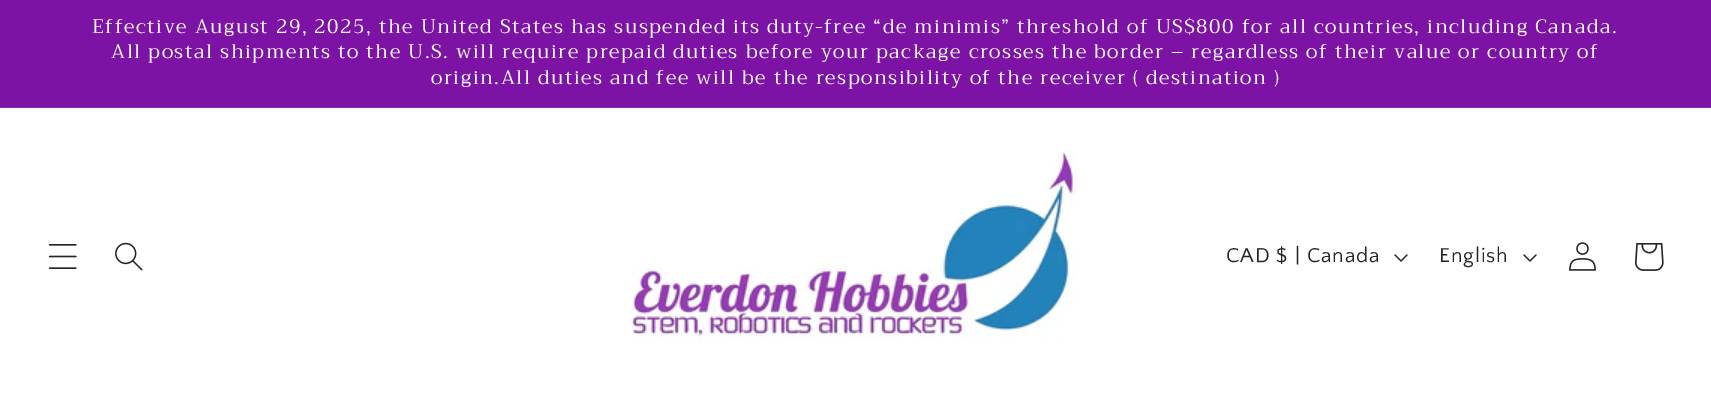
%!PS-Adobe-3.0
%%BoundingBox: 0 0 1711 393
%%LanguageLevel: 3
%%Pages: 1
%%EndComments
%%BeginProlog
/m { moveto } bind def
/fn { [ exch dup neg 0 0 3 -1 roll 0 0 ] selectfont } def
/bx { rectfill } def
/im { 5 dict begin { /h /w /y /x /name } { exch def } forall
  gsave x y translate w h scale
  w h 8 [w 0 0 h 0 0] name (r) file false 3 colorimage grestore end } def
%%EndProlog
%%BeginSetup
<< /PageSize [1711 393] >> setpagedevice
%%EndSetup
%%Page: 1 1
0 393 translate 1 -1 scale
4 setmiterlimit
1 setgray
0 0 1711 393 bx
0.49 0.075 0.643 setrgbcolor
0 0 1711 107 bx
0.529 0.149 0.671 setrgbcolor
0 107 1711 1 bx
/Trirong-Regular 19.5 fn
1 setgray
92 33 m 1.5 0 (Effective August 29, 2025, the United States has suspended its duty-free “de minimis” threshold of US$800 for all countries, including Canada.) ashow
111 58 m 1.5 0 (All postal shipments to the U.S. will require prepaid duties before your package crosses the border – regardless of their value or country of) ashow
431 84 m 1.5 0 (origin.All duties and fee will be the responsibility of the receiver \( destination \)) ashow
(image0.raw) 48 244 29 25 im
(image1.raw) 115 242 28 29 im
(image2.raw) 631 150 446 191 im
/QuattrocentoSans-Regular 21 fn
0.145 setgray
1226 262 m 0.9 0 (CAD $ | Canada) ashow
(image3.raw) 1394 254 14 8 im
1439 262 m 0.9 0 (English) ashow
(image3.raw) 1523 254 14 8 im
(image4.raw) 1569 242 27 29 im
(image5.raw) 1635 243 29 28 im
showpage
%%EOF
